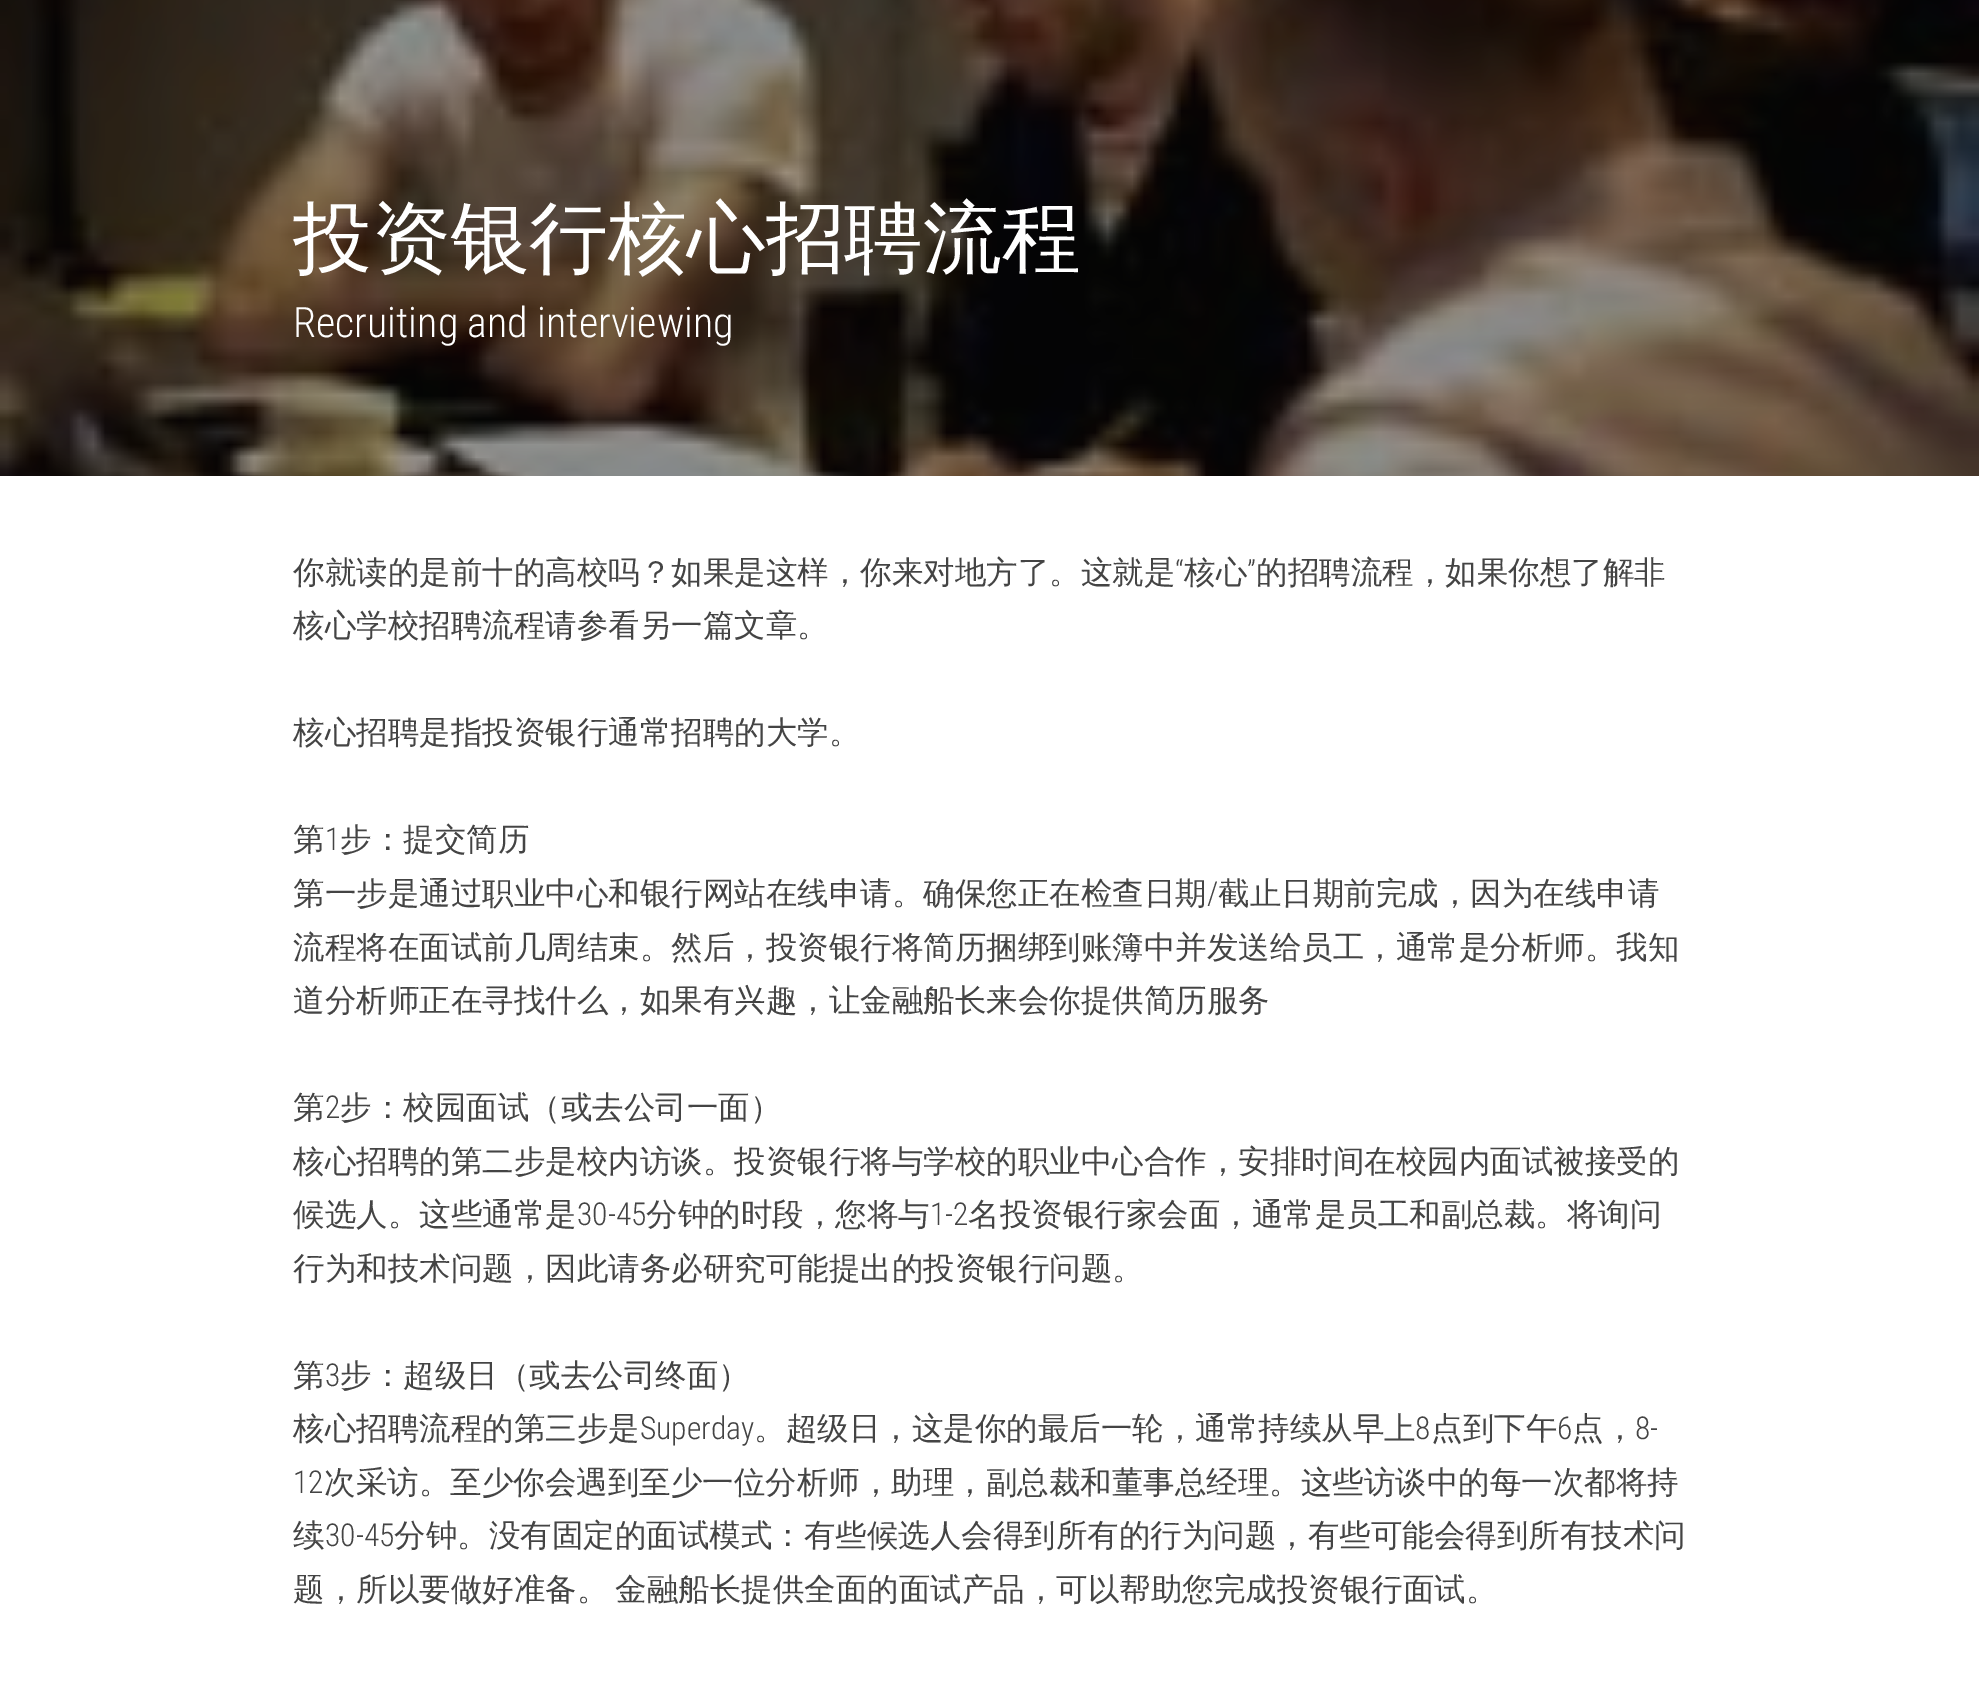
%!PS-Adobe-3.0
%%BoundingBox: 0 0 1979 1684
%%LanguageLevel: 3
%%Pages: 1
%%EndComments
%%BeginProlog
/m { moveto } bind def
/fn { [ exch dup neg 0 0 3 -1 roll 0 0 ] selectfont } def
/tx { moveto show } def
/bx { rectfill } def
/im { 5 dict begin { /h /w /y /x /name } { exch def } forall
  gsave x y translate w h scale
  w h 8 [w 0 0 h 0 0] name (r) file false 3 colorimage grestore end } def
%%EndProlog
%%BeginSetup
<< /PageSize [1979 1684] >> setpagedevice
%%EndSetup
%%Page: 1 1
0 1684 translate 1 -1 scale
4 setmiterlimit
1 setgray
0 0 1979 1684 bx
(image0.raw) 0 0 1979 476 im
/WenQuanYiZenHei-Medium 78.75 fn
(投资银行核心招聘流程) 293 265 tx
/RobotoCondensed-Light 42 fn
(Recruiting and interviewing) 293 337 tx
/WenQuanYiZenHei-Medium 31.5 fn
0.267 setgray
(你就读的是前十的高校吗？如果是这样，你来对地方了。这就是) 293 583 tx
/RobotoCondensed-Light 31.5 fn
(“) 1175 583 tx
/WenQuanYiZenHei-Medium 31.5 fn
(核心) 1184 583 tx
/RobotoCondensed-Light 31.5 fn
(”) 1247 583 tx
/WenQuanYiZenHei-Medium 31.5 fn
(的招聘流程，如果你想了解非) 1256 583 tx
(核心学校招聘流程请参看另一篇文章。) 293 636 tx
(核心招聘是指投资银行通常招聘的大学。) 293 743 tx
(第) 293 850 tx
/RobotoCondensed-Light 31.5 fn
(1) 325 850 tx
/WenQuanYiZenHei-Medium 31.5 fn
(步：提交简历) 340 850 tx
(第一步是通过职业中心和银行网站在线申请。确保您正在检查日期) 293 904 tx
/RobotoCondensed-Light 31.5 fn
(/) 1207 904 tx
/WenQuanYiZenHei-Medium 31.5 fn
(截止日期前完成，因为在线申请) 1218 904 tx
(流程将在面试前几周结束。然后，投资银行将简历捆绑到账簿中并发送给员工，通常是分析师。我知) 293 958 tx
(道分析师正在寻找什么，如果有兴趣，让金融船长来会你提供简历服务) 293 1011 tx
(第) 293 1118 tx
/RobotoCondensed-Light 31.5 fn
(2) 325 1118 tx
/WenQuanYiZenHei-Medium 31.5 fn
(步：校园面试（或去公司一面）) 340 1118 tx
(核心招聘的第二步是校内访谈。投资银行将与学校的职业中心合作，安排时间在校园内面试被接受的) 293 1172 tx
(候选人。这些通常是) 293 1225 tx
/RobotoCondensed-Light 31.5 fn
(30-45) 577 1225 tx
/WenQuanYiZenHei-Medium 31.5 fn
(分钟的时段，您将与) 646 1225 tx
/RobotoCondensed-Light 31.5 fn
(1-2) 930 1225 tx
/WenQuanYiZenHei-Medium 31.5 fn
(名投资银行家会面，通常是员工和副总裁。将询问) 968 1225 tx
(行为和技术问题，因此请务必研究可能提出的投资银行问题。) 293 1279 tx
(第) 293 1386 tx
/RobotoCondensed-Light 31.5 fn
(3) 325 1386 tx
/WenQuanYiZenHei-Medium 31.5 fn
(步：超级日（或去公司终面）) 340 1386 tx
(核心招聘流程的第三步是) 293 1439 tx
/RobotoCondensed-Light 31.5 fn
(Superday) 640 1439 tx
/WenQuanYiZenHei-Medium 31.5 fn
(。超级日，这是你的最后一轮，通常持续从早上) 754 1439 tx
/RobotoCondensed-Light 31.5 fn
(8) 1415 1439 tx
/WenQuanYiZenHei-Medium 31.5 fn
(点到下午) 1431 1439 tx
/RobotoCondensed-Light 31.5 fn
(6) 1557 1439 tx
/WenQuanYiZenHei-Medium 31.5 fn
(点，) 1572 1439 tx
/RobotoCondensed-Light 31.5 fn
(8-) 1635 1439 tx
(12) 293 1493 tx
/WenQuanYiZenHei-Medium 31.5 fn
(次采访。至少你会遇到至少一位分析师，助理，副总裁和董事总经理。这些访谈中的每一次都将持) 324 1493 tx
(续) 293 1546 tx
/RobotoCondensed-Light 31.5 fn
(30-45) 325 1546 tx
/WenQuanYiZenHei-Medium 31.5 fn
(分钟。没有固定的面试模式：有些候选人会得到所有的行为问题，有些可能会得到所有技术问) 394 1546 tx
293 1600 m -2 0 32 (题，所以要做好准备。 金融船长提供全面的面试产品，可以帮助您完成投资银行面试。) widthshow
showpage
%%EOF
